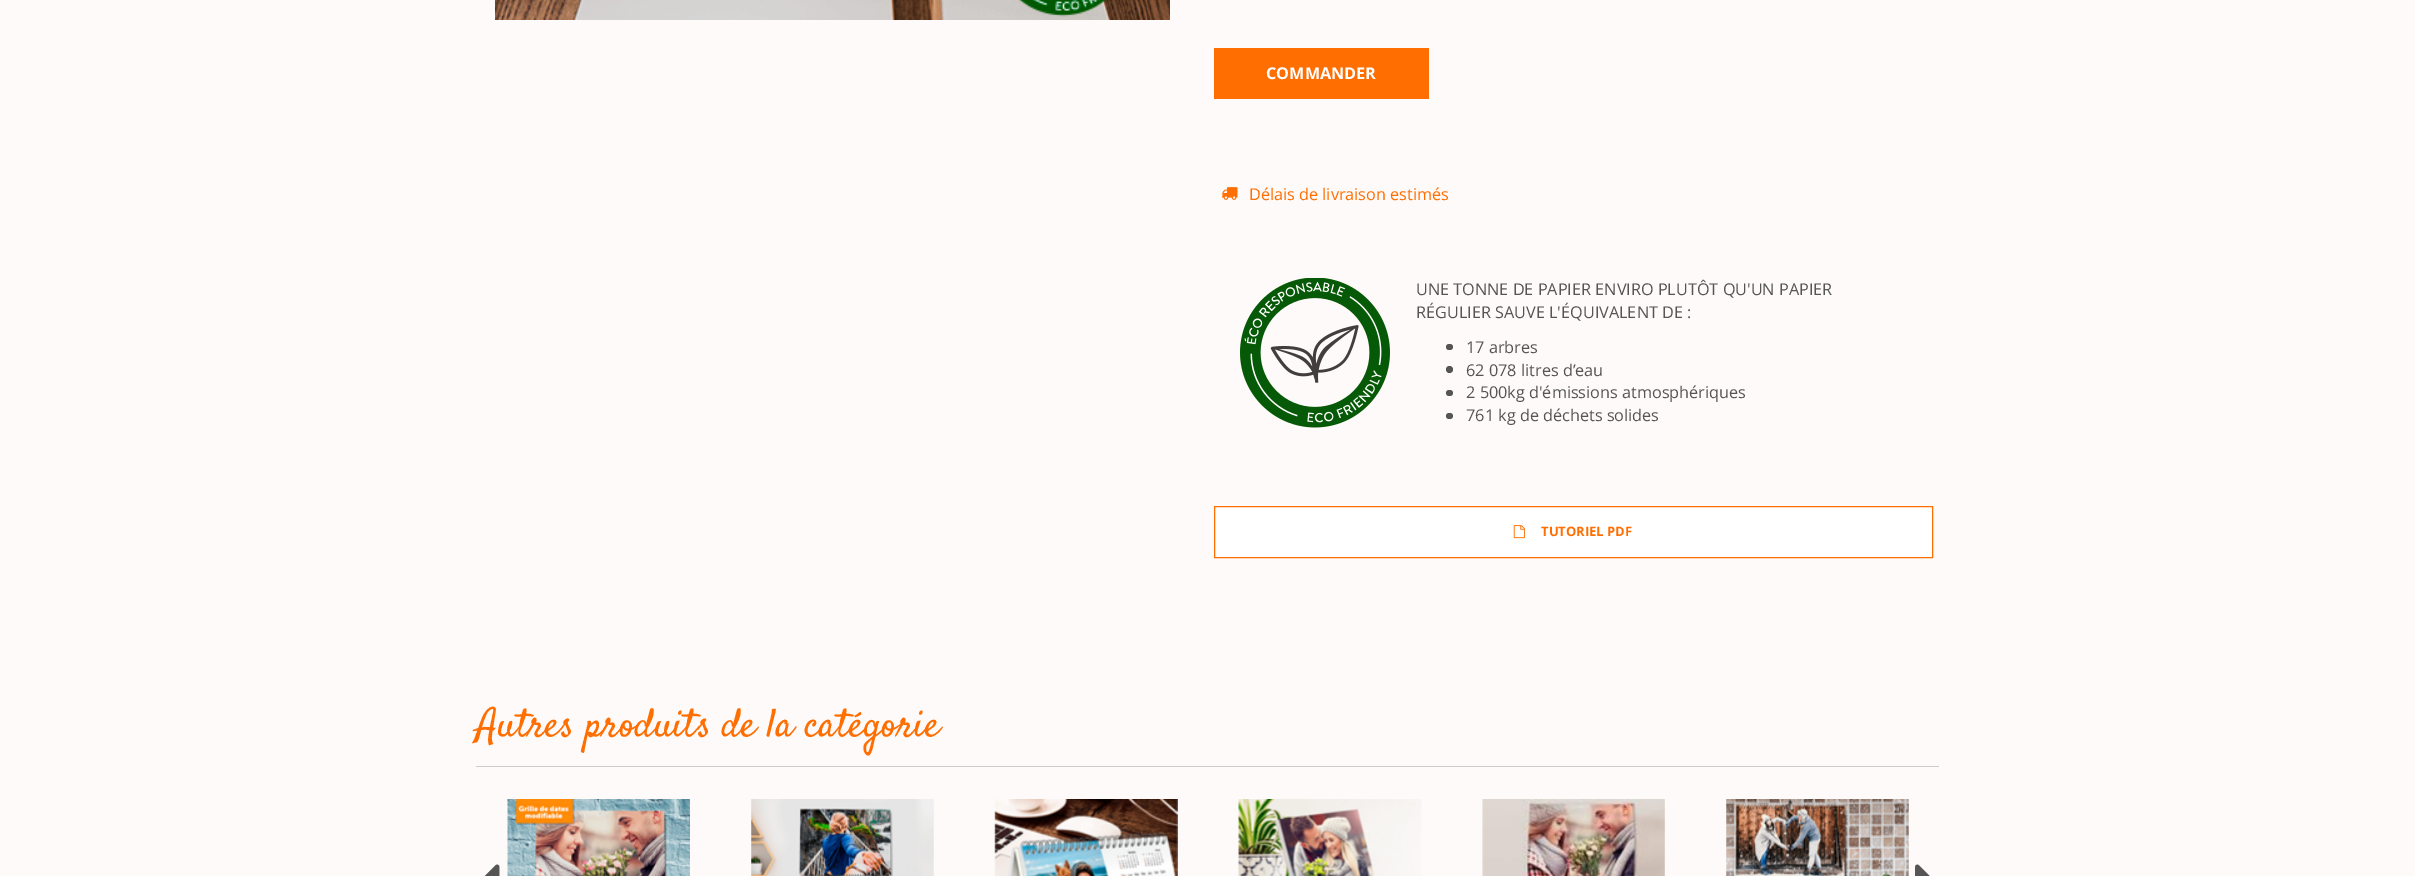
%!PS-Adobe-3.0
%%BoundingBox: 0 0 2415 876
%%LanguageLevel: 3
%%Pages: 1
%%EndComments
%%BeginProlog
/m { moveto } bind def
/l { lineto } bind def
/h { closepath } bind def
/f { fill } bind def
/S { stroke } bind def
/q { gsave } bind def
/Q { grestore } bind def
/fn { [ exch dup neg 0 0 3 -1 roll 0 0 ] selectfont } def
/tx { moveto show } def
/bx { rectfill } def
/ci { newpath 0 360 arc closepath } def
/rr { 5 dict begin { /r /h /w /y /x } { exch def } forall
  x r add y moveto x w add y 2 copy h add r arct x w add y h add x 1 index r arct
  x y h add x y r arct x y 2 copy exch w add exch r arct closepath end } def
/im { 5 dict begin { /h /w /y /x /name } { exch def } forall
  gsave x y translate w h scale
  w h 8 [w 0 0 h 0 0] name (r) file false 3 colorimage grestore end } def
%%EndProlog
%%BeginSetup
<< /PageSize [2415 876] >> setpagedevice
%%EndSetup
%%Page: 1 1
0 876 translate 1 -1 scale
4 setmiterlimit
0.996 0.98 0.976 setrgbcolor
0 0 2415 876 bx
(image0.raw) 495 0 675 20 im
(image1.raw) 1018 0 89 17 im
1 0.431 0.004 setrgbcolor
1214 48 215 51 bx
/OpenSans-Bold 16.25 fn
1 setgray
(COMMANDER) 1266 79 tx
(image2.raw) 1221 187 17 13 im
/OpenSans-Regular 16.25 fn
1 0.431 0.004 setrgbcolor
(Délais de livraison estimés) 1249 200 tx
(image3.raw) 1240 278 150 150 im
0.333 setgray
(UNE TONNE DE PAPIER ENVIRO PLUTÔT QU'UN PAPIER) 1416 295 tx
(RÉGULIER SAUVE L'ÉQUIVALENT DE :) 1416 318 tx
1446 344 7 6 3 rr f
(17 arbres) 1466 353 tx
1449.5 369.5 3.5 ci f
(62 078 litres d’eau) 1466 376 tx
1446 390 7 6 3 rr f
(2 500kg d'émissions atmosphériques) 1466 398 tx
1446 413 7 6 3 rr f
(761 kg de déchets solides) 1466 421 tx
1 setgray
1214.5 506.5 m 1932.5 506.5 l 1932.5 557.5 l 1214.5 557.5 l h q f Q
1 0.431 0.004 setrgbcolor
S
(image4.raw) 1513 525 12 14 im
/OpenSans-Bold 13 fn
(TUTORIEL PDF) 1541 536 tx
0.8 setgray
476 766 1463 1 bx
/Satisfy-Regular 40 fn
1 0.431 0.004 setrgbcolor
(Autres produits de la catégorie) 476 736 tx
(image5.raw) 507 799 183 77 im
(image6.raw) 751 799 183 77 im
(image7.raw) 994 799 184 77 im
(image8.raw) 1238 799 184 77 im
(image9.raw) 1482 799 183 77 im
(image10.raw) 1726 799 183 77 im
(image11.raw) 484 864 16 12 im
(image12.raw) 1915 864 15 12 im
showpage
%%EOF
